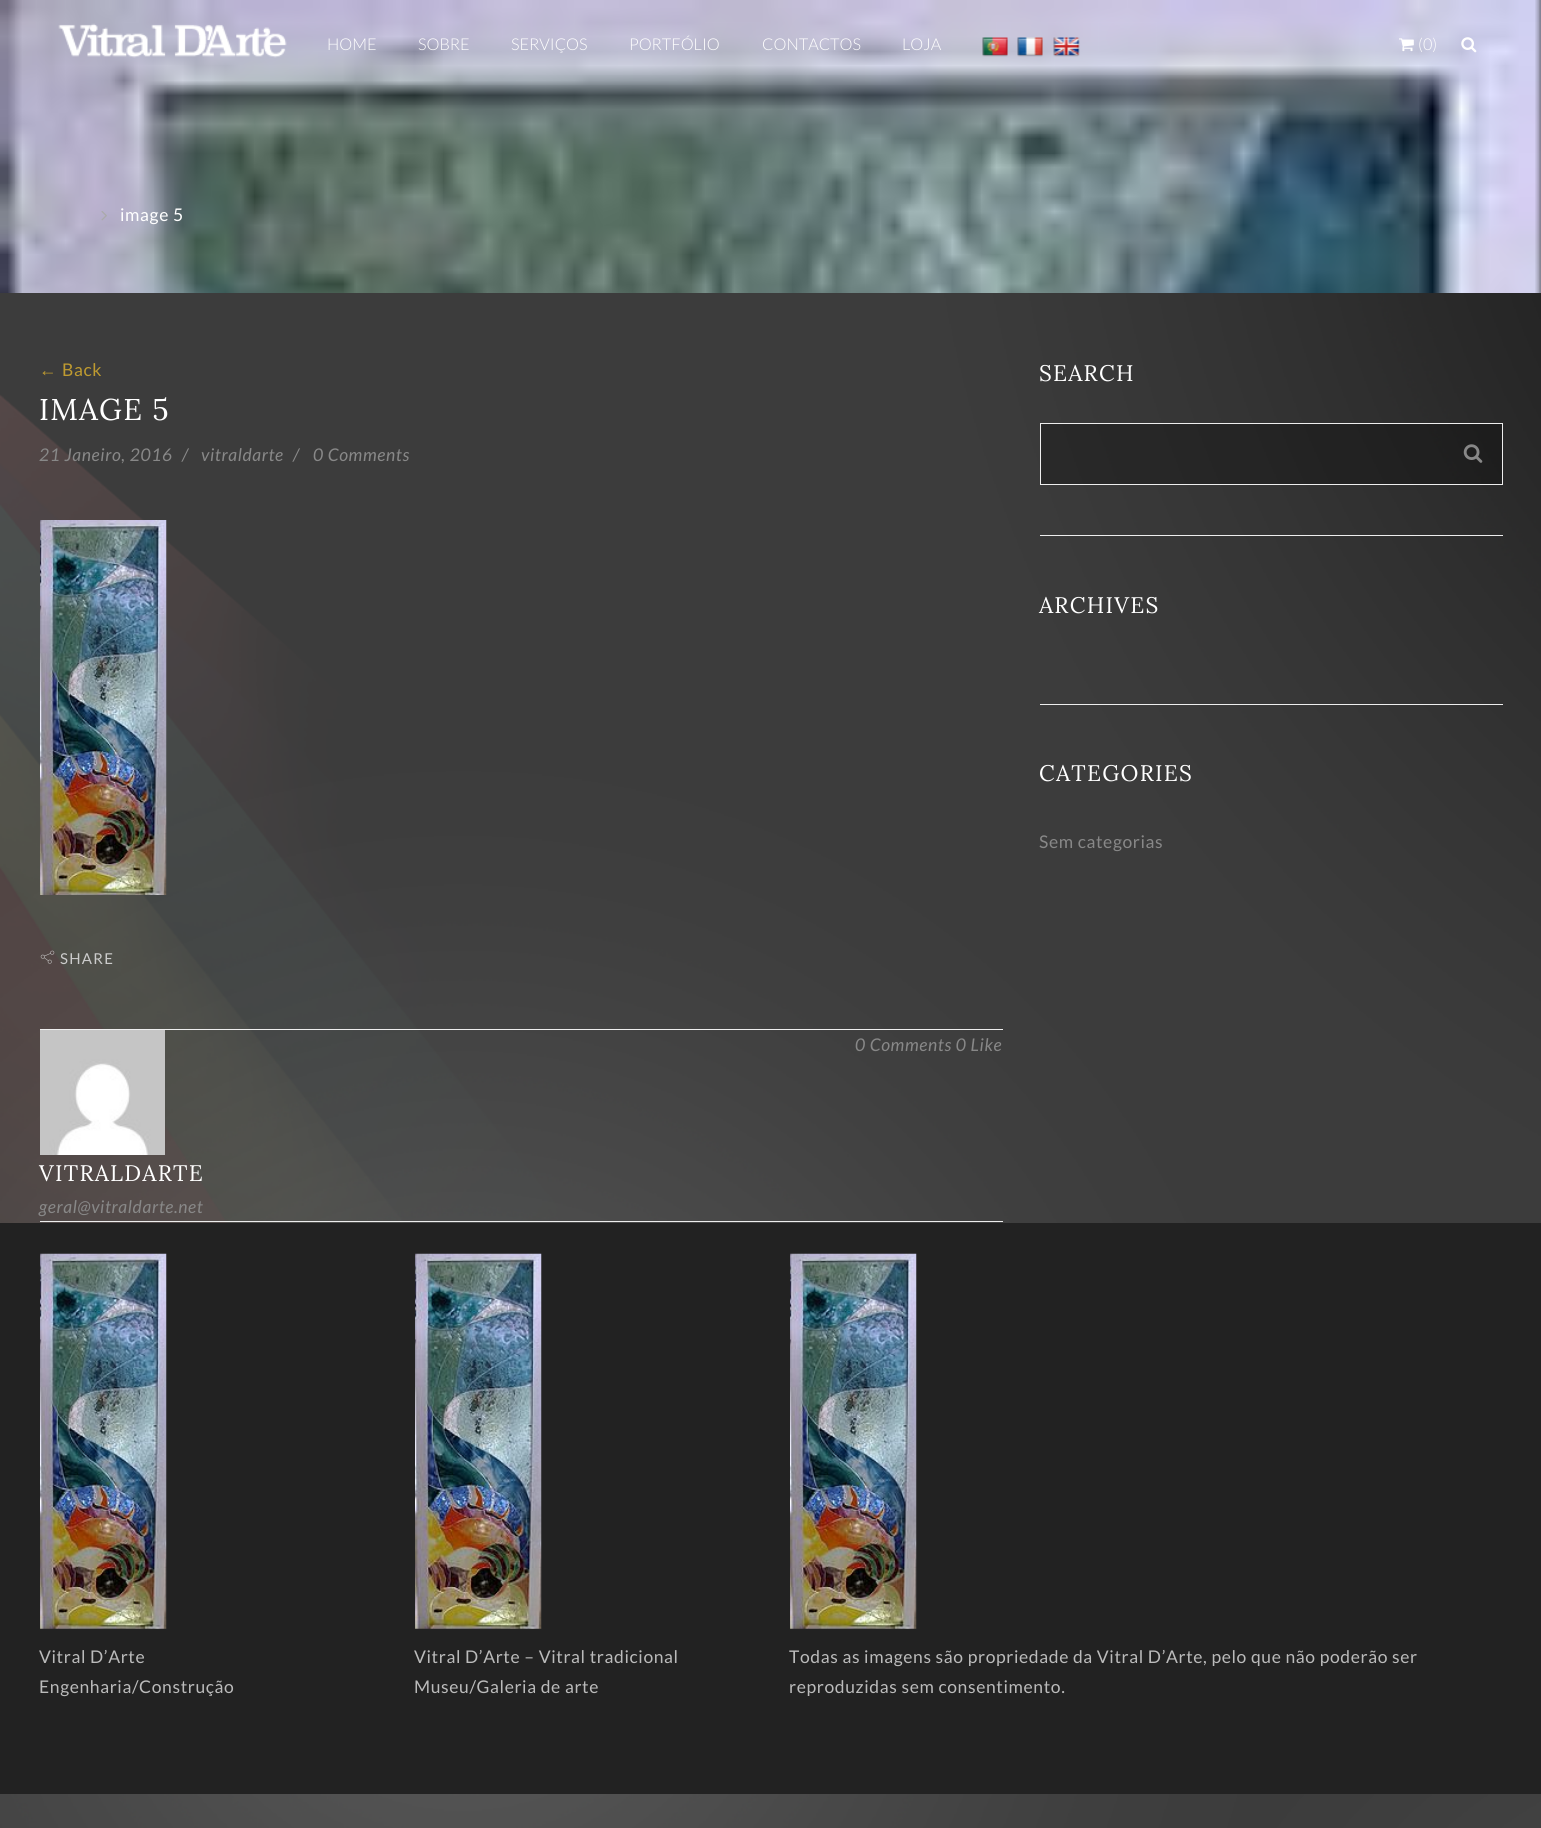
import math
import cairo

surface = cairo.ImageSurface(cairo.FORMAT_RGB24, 1541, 1828)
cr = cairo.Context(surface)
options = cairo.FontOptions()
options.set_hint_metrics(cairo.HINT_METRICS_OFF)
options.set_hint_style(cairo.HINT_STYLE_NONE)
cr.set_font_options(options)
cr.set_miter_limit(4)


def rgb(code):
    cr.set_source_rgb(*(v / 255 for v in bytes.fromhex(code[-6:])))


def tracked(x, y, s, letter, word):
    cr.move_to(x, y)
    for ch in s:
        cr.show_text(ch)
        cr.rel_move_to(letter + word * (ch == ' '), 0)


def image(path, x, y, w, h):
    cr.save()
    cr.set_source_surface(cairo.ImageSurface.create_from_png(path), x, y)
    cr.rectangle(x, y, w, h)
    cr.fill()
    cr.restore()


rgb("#ffffff")
cr.paint()
image("img/1.png", 0, 0, 1541, 1828)
image("img/8.png", 0, 0, 1541, 293)
image("img/2.png", 58, 23, 229, 35)
image("img/3.png", 982, 37, 26, 20)
image("img/4.png", 1017, 37, 26, 20)
image("img/5.png", 1053, 37, 27, 20)
image("img/6.png", 1399, 38, 15, 14)
image("img/7.png", 1461, 37, 16, 16)
image("img/9.png", 101, 211, 6, 10)
image("img/10.png", 40, 520, 127, 375)
rgb("#eeeeee")
cr.rectangle(40, 1029, 963, 1)
cr.fill()
image("img/11.png", 40, 950, 15, 14)
image("img/12.png", 40, 1030, 125, 125)
cr.rectangle(40, 1221, 963, 1)
cr.fill()
cr.rectangle(1040, 535, 463, 1)
cr.fill()
cr.set_source_rgba(0, 0, 0, 0.3)
cr.rectangle(1040.5, 423.5, 462, 61)
cr.fill_preserve()
rgb("#eeeeee")
cr.set_line_width(1)
cr.stroke()
image("img/13.png", 1463, 444, 20, 19)
cr.rectangle(1040, 704, 463, 1)
cr.fill()
rgb("#222222")
cr.rectangle(0, 1223, 1541, 571)
cr.fill()
image("img/14.png", 40, 1253, 127, 376)
image("img/14.png", 415, 1253, 127, 376)
image("img/14.png", 790, 1253, 127, 376)
cr.select_font_face("Lato Light")
cr.set_font_size(16.25)
rgb("#ffffff")
for x, y, s in [
    (327, 50, "HOME"),
    (418, 50, "SOBRE"),
    (511, 50, "SERVIÇOS"),
    (629, 50, "PORTFÓLIO"),
    (762, 50, "CONTACTOS"),
    (902, 50, "LOJA"),
    (1418, 50, "(0)"),
]:
    cr.move_to(x, y)
    cr.show_text(s)
cr.select_font_face("Lato")
cr.set_font_size(17.5)
tracked(120, 221, "image 5", 0.62, 0)
cr.select_font_face("Liberation Serif")
rgb("#bf9b30")
tracked(39, 376, "←", 0.62, 0)
cr.select_font_face("Lato")
tracked(62, 376, "Back", 0.62, 0)
cr.select_font_face("Lora")
cr.set_font_size(30)
rgb("#ffffff")
tracked(39, 420, "IMAGE 5", 1.25, 0)
cr.select_font_face("Lato", cairo.FONT_SLANT_ITALIC)
cr.set_font_size(17.5)
rgb("#888888")
for x, y, s in [
    (39, 461, "21 Janeiro, 2016"),
    (182, 461, "/"),
    (201, 461, "vitraldarte"),
    (293, 461, "/"),
    (313, 461, "0 Comments"),
]:
    tracked(x, y, s, 0.62, 0)
cr.select_font_face("Lato")
cr.set_font_size(15)
rgb("#cccccc")
tracked(60, 964, "SHARE", 1.25, 0)
cr.select_font_face("Lato", cairo.FONT_SLANT_ITALIC)
cr.set_font_size(17.5)
rgb("#888888")
tracked(855, 1051, "0 Comments 0 Like", 0.62, 0)
cr.select_font_face("Lora")
cr.set_font_size(22.5)
rgb("#ffffff")
tracked(39, 1181, "VITRALDARTE", 1.25, 0)
cr.select_font_face("Lato", cairo.FONT_SLANT_ITALIC)
cr.set_font_size(17.5)
rgb("#888888")
tracked(39, 1213, "geral@vitraldarte.net", 0.62, 0)
cr.select_font_face("Lora")
cr.set_font_size(22.5)
rgb("#ffffff")
for x, y, s in [
    (1039, 381, "SEARCH"),
    (1039, 613, "ARCHIVES"),
    (1039, 781, "CATEGORIES"),
]:
    tracked(x, y, s, 1.25, 0)
cr.select_font_face("Lato")
cr.set_font_size(17.5)
rgb("#888888")
tracked(1039, 848, "Sem categorias", 0.62, 0)
rgb("#bbbbbb")
for x, y, s in [
    (39, 1663, "Vitral D’Arte"),
    (39, 1693, "Engenharia/Construção"),
    (414, 1663, "Vitral D’Arte – Vitral tradicional"),
    (414, 1693, "Museu/Galeria de arte"),
    (789, 1663, "Todas as imagens são propriedade da Vitral D’Arte, pelo que não poderão ser"),
    (789, 1693, "reproduzidas sem consentimento."),
]:
    tracked(x, y, s, 0.62, 0)
surface.write_to_png("page.png")
